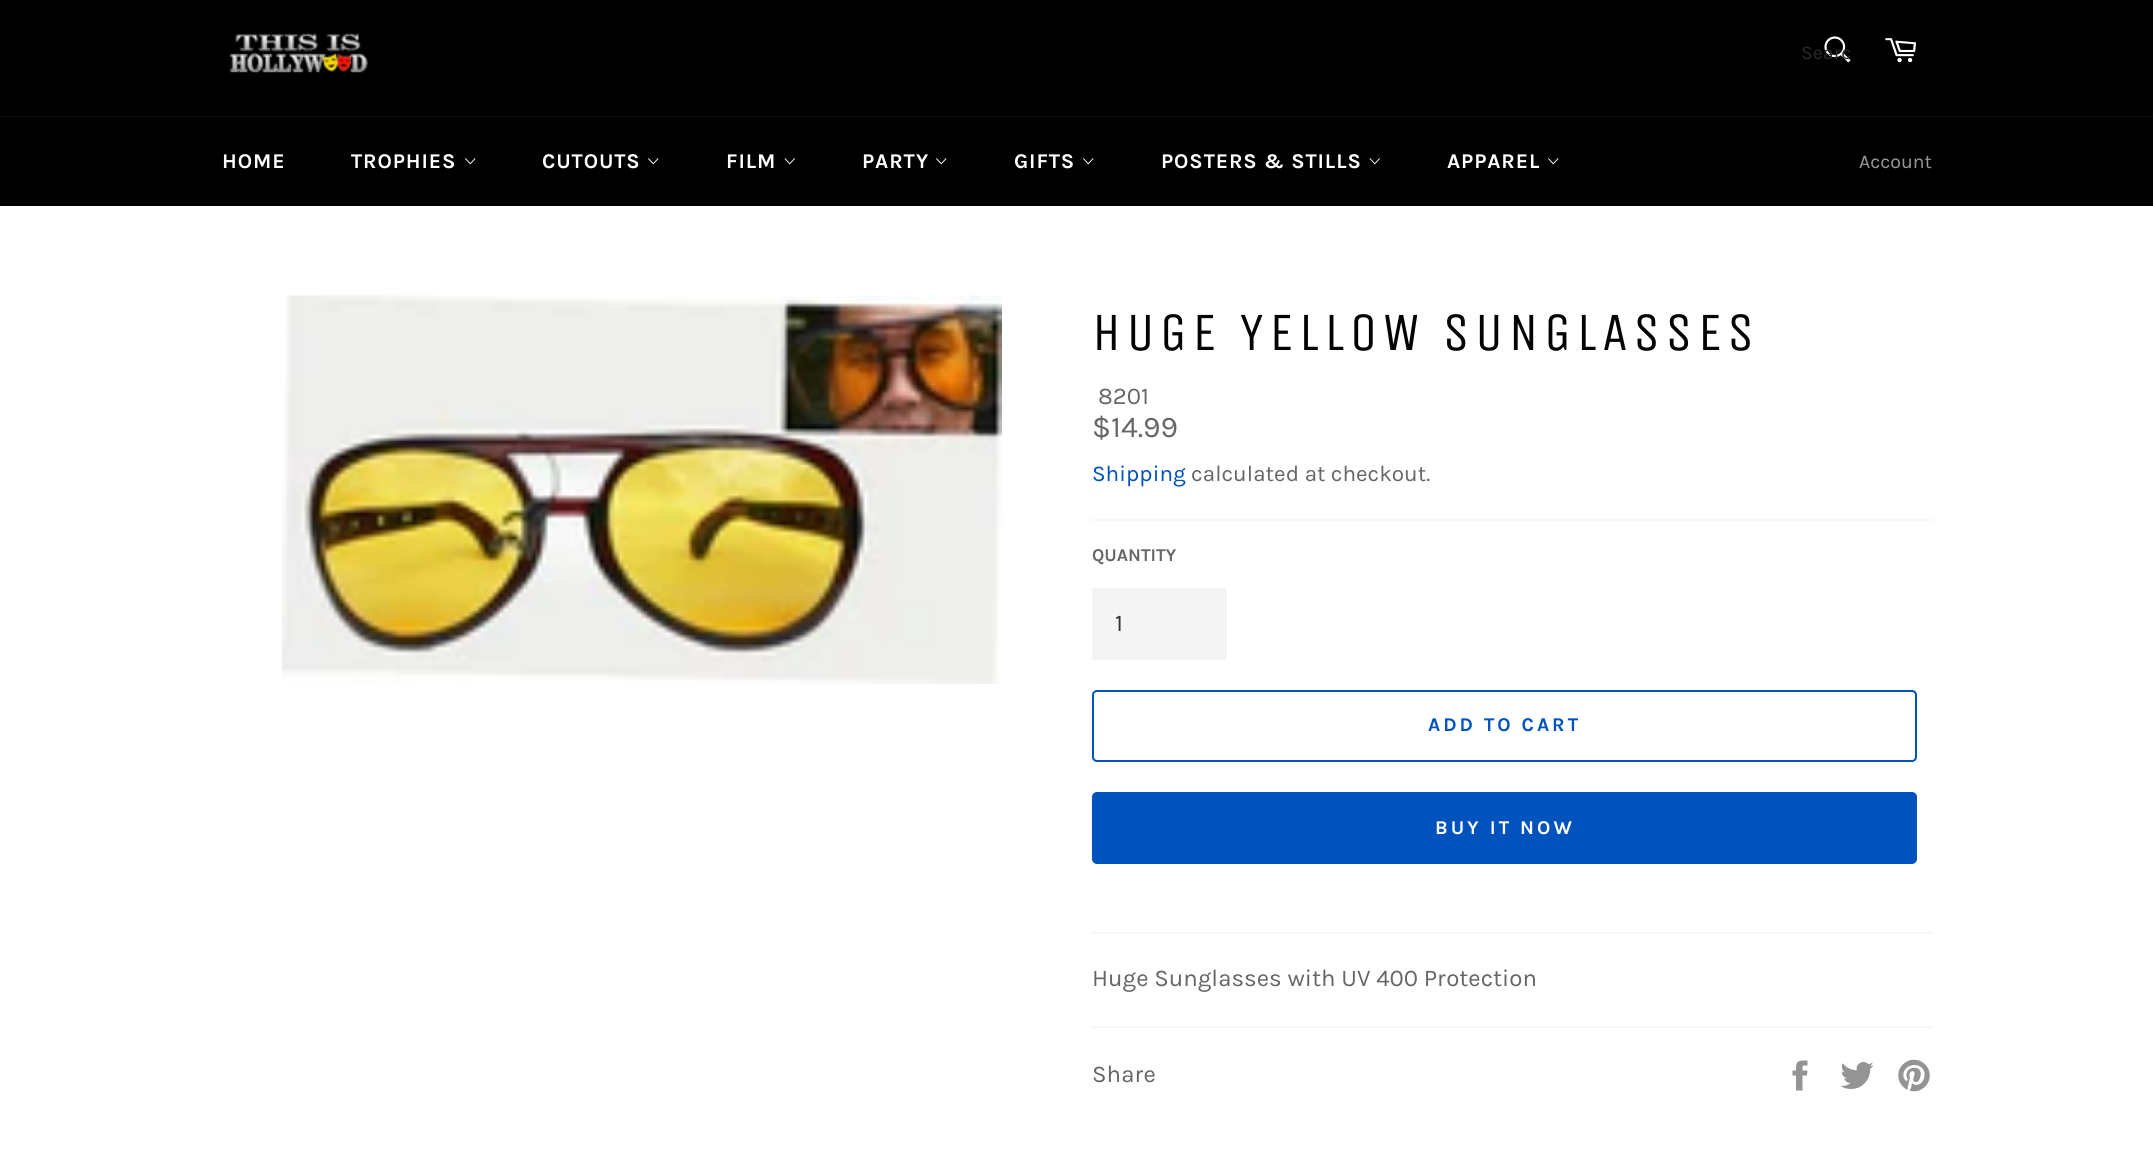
import math
import cairo

surface = cairo.ImageSurface(cairo.FORMAT_RGB24, 2153, 1175)
cr = cairo.Context(surface)
options = cairo.FontOptions()
options.set_hint_metrics(cairo.HINT_METRICS_OFF)
options.set_hint_style(cairo.HINT_STYLE_NONE)
cr.set_font_options(options)
cr.set_miter_limit(4)


def rgb(code):
    cr.set_source_rgb(*(v / 255 for v in bytes.fromhex(code[-6:])))


def tracked(x, y, s, letter, word):
    cr.move_to(x, y)
    for ch in s:
        cr.show_text(ch)
        cr.rel_move_to(letter + word * (ch == ' '), 0)


def rrect(x, y, w, h, r):
    cr.new_sub_path()
    for i, (u, v) in enumerate([(x + w - r, y + h - r), (x + r, y + h - r), (x + r, y + r), (x + w - r, y + r)]):
        cr.arc(u, v, r, i * math.pi / 2, (i + 1) * math.pi / 2)
    cr.close_path()


def image(path, x, y, w, h):
    cr.save()
    cr.set_source_surface(cairo.ImageSurface.create_from_png(path), x, y)
    cr.rectangle(x, y, w, h)
    cr.fill()
    cr.restore()


rgb("#000000")
cr.paint()
image("img/1.png", 229, 32, 139, 41)
image("img/2.png", 1824, 36, 27, 27)
image("img/3.png", 1885, 38, 31, 25)
rgb("#0d0d0d")
cr.rectangle(0, 116, 2153, 1)
cr.fill()
image("img/4.png", 465, 158, 11, 7)
image("img/4.png", 648, 158, 11, 7)
image("img/5.png", 784, 158, 11, 7)
image("img/4.png", 936, 158, 11, 7)
image("img/4.png", 1083, 158, 11, 7)
image("img/5.png", 1369, 158, 11, 7)
image("img/4.png", 1548, 158, 11, 7)
rgb("#ffffff")
cr.rectangle(0, 206, 2153, 969)
cr.fill()
image("img/6.png", 282, 295, 720, 389)
rgb("#f7f7f7")
cr.rectangle(1092, 519, 840, 2)
cr.fill()
rgb("#f4f4f4")
cr.rectangle(1092, 588, 135, 72)
cr.fill()
rrect(1093, 691, 823, 70, 4)
rgb("#0052bd")
cr.stroke()
rrect(1092, 792, 825, 72, 5)
cr.fill()
rgb("#f7f7f7")
cr.rectangle(1092, 932, 840, 2)
cr.fill()
cr.rectangle(1092, 1026, 840, 2)
cr.fill()
image("img/7.png", 1792, 1060, 16, 31)
image("img/8.png", 1840, 1062, 34, 27)
image("img/9.png", 1898, 1059, 32, 33)
cr.save()
cr.rectangle(1802, 41, 48, 22)
cr.clip()
cr.select_font_face("Karla")
cr.set_font_size(19.5)
rgb("#2a2a2a")
cr.move_to(1801, 59)
cr.show_text("Searc")
cr.restore()
cr.select_font_face("Karla", cairo.FONT_SLANT_NORMAL, cairo.FONT_WEIGHT_BOLD)
cr.set_font_size(21)
rgb("#ffffff")
for x, y, s in [
    (222, 168, "HOME"),
    (351, 168, "TROPHIES"),
    (542, 168, "CUTOUTS"),
    (726, 168, "FILM"),
    (862, 168, "PARTY"),
    (1014, 168, "GIFTS"),
    (1161, 168, "POSTERS & STILLS"),
    (1447, 168, "APPAREL"),
]:
    tracked(x, y, s, 0.9, 0)
cr.select_font_face("Karla")
cr.set_font_size(19.5)
rgb("#999999")
cr.move_to(1859, 168)
cr.show_text("Account")
cr.select_font_face("Unica One")
cr.set_font_size(54)
rgb("#030303")
tracked(1092, 350, "HUGE YELLOW SUNGLASSES", 5.4, 0)
cr.select_font_face("Karla")
cr.set_font_size(24)
rgb("#666666")
cr.move_to(1098, 404)
cr.show_text("8201")
cr.set_font_size(30)
cr.move_to(1092, 437)
cr.show_text("$14.99")
cr.set_font_size(22.5)
rgb("#0052bd")
cr.move_to(1092, 481)
cr.show_text("Shipping")
rgb("#666666")
cr.move_to(1191, 481)
cr.show_text("calculated at checkout.")
cr.select_font_face("Karla", cairo.FONT_SLANT_NORMAL, cairo.FONT_WEIGHT_BOLD)
cr.set_font_size(18)
cr.move_to(1092, 561)
cr.show_text("QUANTITY")
cr.select_font_face("Karla")
cr.set_font_size(24)
rgb("#333333")
cr.move_to(1115, 631)
cr.show_text("1")
cr.select_font_face("Karla", cairo.FONT_SLANT_NORMAL, cairo.FONT_WEIGHT_BOLD)
cr.set_font_size(19.5)
rgb("#0052bd")
tracked(1428, 731, "ADD TO CART", 3, 0)
rgb("#ffffff")
tracked(1435, 834, "BUY IT NOW", 3, 0)
cr.select_font_face("Karla")
cr.set_font_size(24)
rgb("#666666")
cr.move_to(1092, 986)
cr.show_text("Huge Sunglasses with UV 400 Protection")
cr.move_to(1092, 1082)
cr.show_text("Share")
surface.write_to_png("page.png")
